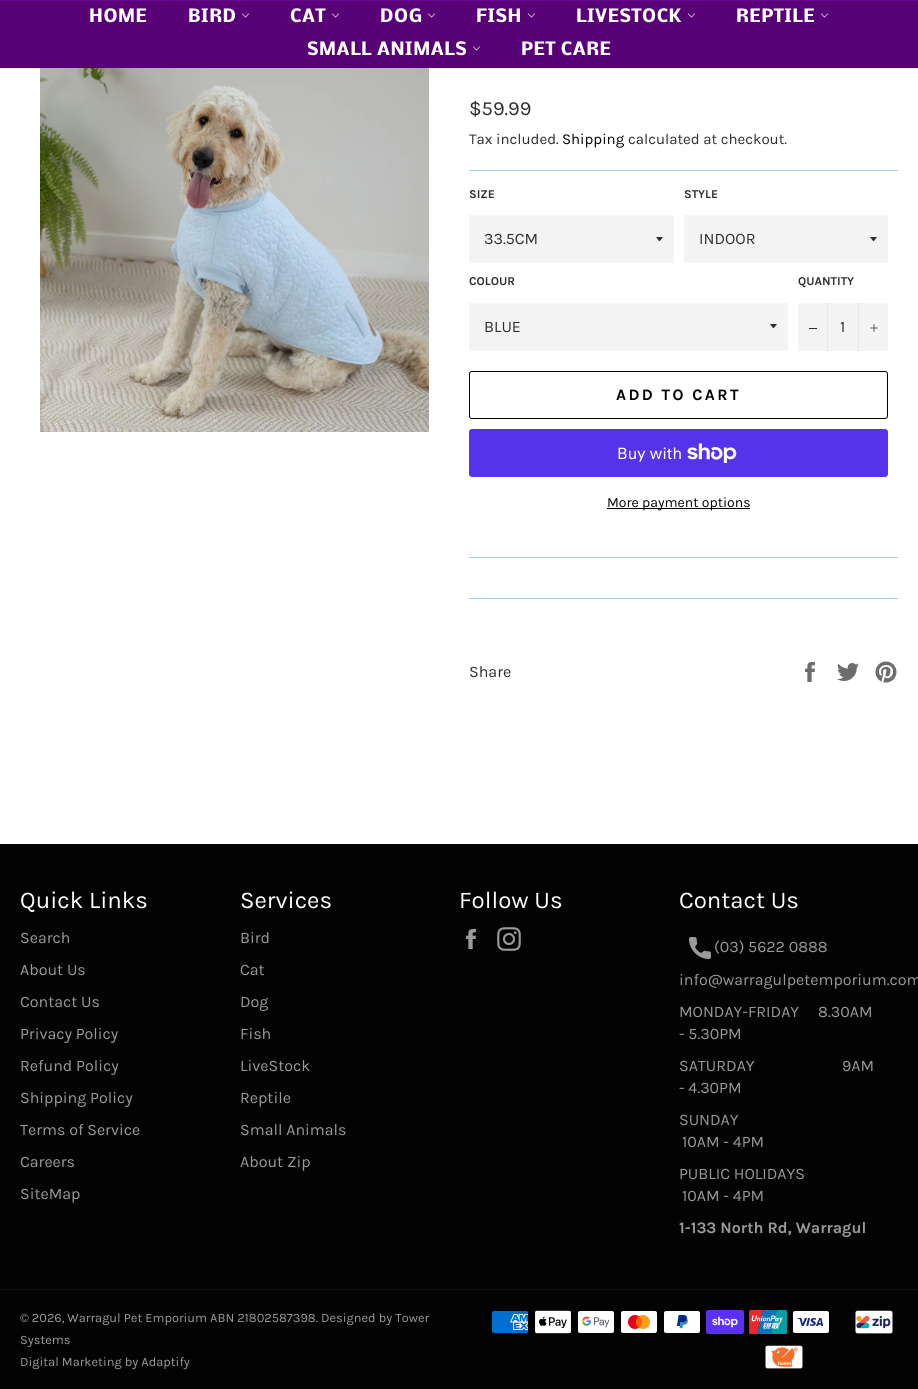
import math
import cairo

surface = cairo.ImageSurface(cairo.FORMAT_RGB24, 918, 1389)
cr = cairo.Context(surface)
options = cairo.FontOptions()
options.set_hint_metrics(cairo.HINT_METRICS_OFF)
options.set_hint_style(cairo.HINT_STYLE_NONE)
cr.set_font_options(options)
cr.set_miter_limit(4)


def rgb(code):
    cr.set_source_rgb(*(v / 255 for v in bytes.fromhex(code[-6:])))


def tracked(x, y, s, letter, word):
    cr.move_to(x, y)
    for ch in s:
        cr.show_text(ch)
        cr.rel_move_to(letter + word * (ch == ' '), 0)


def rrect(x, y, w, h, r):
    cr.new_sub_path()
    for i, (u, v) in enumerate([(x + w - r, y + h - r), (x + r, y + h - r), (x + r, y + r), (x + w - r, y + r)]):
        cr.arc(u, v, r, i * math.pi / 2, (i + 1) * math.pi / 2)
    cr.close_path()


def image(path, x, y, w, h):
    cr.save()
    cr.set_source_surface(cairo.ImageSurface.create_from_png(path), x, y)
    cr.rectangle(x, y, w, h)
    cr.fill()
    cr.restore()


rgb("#ffffff")
cr.paint()
rgb("#580176")
cr.rectangle(0, 1, 918, 67)
cr.fill()
rgb("#6b018f")
cr.rectangle(0, 0, 918, 1)
cr.fill()
image("img/1.png", 242, 13, 7, 5)
image("img/1.png", 332, 13, 7, 5)
image("img/1.png", 428, 13, 7, 5)
image("img/1.png", 528, 13, 7, 5)
image("img/1.png", 688, 13, 7, 5)
image("img/1.png", 821, 13, 7, 5)
image("img/1.png", 473, 46, 7, 5)
image("img/2.png", 40, 68, 389, 364)
rgb("#a1cfe1")
cr.rectangle(469, 170, 429, 1)
cr.fill()
rgb("#f4f4f4")
cr.rectangle(469, 215, 205, 48)
cr.fill()
rgb("#2e2e2e")
cr.new_path()
cr.move_to(656, 237)
cr.curve_to(660.5, 242.5, 658.5, 242.5, 663, 237)
cr.close_path()
cr.fill()
rgb("#f4f4f4")
cr.rectangle(684, 215, 204, 48)
cr.fill()
rgb("#2e2e2e")
cr.new_path()
cr.move_to(870, 237)
cr.curve_to(874.5, 242.5, 872.5, 242.5, 877, 237)
cr.close_path()
cr.fill()
rgb("#f4f4f4")
cr.rectangle(469, 303, 319, 48)
cr.fill()
rgb("#2e2e2e")
cr.new_path()
cr.move_to(770, 324)
cr.curve_to(774.5, 329.5, 772.5, 329.5, 777, 324)
cr.close_path()
cr.fill()
for x, y, w, h, color in [
    (798, 303, 90, 48, "#f4f4f4"),
    (827, 303, 1, 48, "#e7e7e7"),
    (809, 328, 8, 1, "#2e2e2e"),
    (858, 303, 1, 48, "#e7e7e7"),
]:
    rgb(color)
    cr.rectangle(x, y, w, h)
    cr.fill()
image("img/3.png", 870, 324, 8, 8)
rrect(469.5, 371.5, 418, 47, 2.5)
rgb("#000000")
cr.set_line_width(1)
cr.stroke()
rgb("#5433eb")
rrect(469, 429, 419, 48, 3)
cr.fill()
image("img/4.png", 687, 443, 50, 20)
for x, y, w, h, color in [
    (607, 508, 143, 1, "#000000"),
    (469, 557, 429, 1, "#a1cfe1"),
    (469, 598, 429, 1, "#a1cfe1"),
]:
    rgb(color)
    cr.rectangle(x, y, w, h)
    cr.fill()
image("img/5.png", 805, 662, 10, 20)
image("img/6.png", 837, 663, 22, 18)
image("img/7.png", 875, 661, 22, 22)
rgb("#030303")
cr.rectangle(0, 844, 918, 545)
cr.fill()
image("img/8.png", 466, 929, 10, 20)
image("img/9.png", 497, 927, 24, 24)
image("img/10.png", 689, 937, 22, 22)
rgb("#101010")
cr.rectangle(0, 1289, 918, 1)
cr.fill()
image("img/11.png", 492, 1311, 36, 22)
image("img/12.png", 535, 1310, 36, 24)
image("img/13.png", 578, 1311, 36, 22)
image("img/14.png", 621, 1311, 36, 22)
image("img/15.png", 664, 1311, 36, 22)
image("img/16.png", 706, 1310, 38, 24)
image("img/17.png", 749, 1310, 38, 24)
image("img/18.png", 793, 1311, 36, 22)
image("img/19.png", 855, 1310, 38, 24)
image("img/20.png", 765, 1345, 38, 24)
cr.select_font_face("Nobile", cairo.FONT_SLANT_NORMAL, cairo.FONT_WEIGHT_BOLD)
cr.set_font_size(17)
rgb("#ffffff")
for x, y, s in [
    (89, 22, "HOME"),
    (188, 22, "BIRD"),
    (290, 22, "CAT"),
    (380, 22, "DOG"),
    (476, 22, "FISH"),
    (576, 22, "LIVESTOCK"),
    (736, 22, "REPTILE"),
    (307, 55, "SMALL ANIMALS"),
    (521, 55, "PET CARE"),
]:
    tracked(x, y, s, 0.6, 0)
cr.select_font_face("Karla")
cr.set_font_size(20)
rgb("#2e2e2e")
cr.move_to(469, 115)
cr.show_text("$59.99")
cr.set_font_size(15)
cr.move_to(469, 144)
cr.show_text("Tax included.")
rgb("#000000")
cr.move_to(562, 144)
cr.show_text("Shipping")
rgb("#2e2e2e")
cr.move_to(628, 144)
cr.show_text("calculated at checkout.")
cr.select_font_face("Karla", cairo.FONT_SLANT_NORMAL, cairo.FONT_WEIGHT_BOLD)
cr.set_font_size(12)
cr.move_to(469, 198)
cr.show_text("SIZE")
cr.select_font_face("Karla")
cr.set_font_size(16)
cr.move_to(484, 244)
cr.show_text("33.5CM")
cr.select_font_face("Karla", cairo.FONT_SLANT_NORMAL, cairo.FONT_WEIGHT_BOLD)
cr.set_font_size(12)
cr.move_to(684, 198)
cr.show_text("STYLE")
cr.select_font_face("Karla")
cr.set_font_size(16)
cr.move_to(699, 244)
cr.show_text("INDOOR")
cr.select_font_face("Karla", cairo.FONT_SLANT_NORMAL, cairo.FONT_WEIGHT_BOLD)
cr.set_font_size(12)
cr.move_to(469, 285)
cr.show_text("COLOUR")
cr.select_font_face("Karla")
cr.set_font_size(16)
cr.move_to(484, 332)
cr.show_text("BLUE")
cr.select_font_face("Karla", cairo.FONT_SLANT_NORMAL, cairo.FONT_WEIGHT_BOLD)
cr.set_font_size(12)
cr.move_to(798, 285)
cr.show_text("QUANTITY")
cr.select_font_face("Karla")
cr.set_font_size(16)
cr.move_to(840, 332)
cr.show_text("1")
cr.select_font_face("Karla", cairo.FONT_SLANT_NORMAL, cairo.FONT_WEIGHT_BOLD)
rgb("#000000")
tracked(616, 400, "ADD TO CART", 2.4, 0)
cr.select_font_face("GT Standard")
rgb("#ffffff")
cr.move_to(617, 459)
cr.show_text("Buy with")
cr.select_font_face("Karla")
cr.set_font_size(14)
rgb("#000000")
cr.move_to(607, 507)
cr.show_text("More payment options")
cr.set_font_size(16)
rgb("#2e2e2e")
cr.move_to(469, 677)
cr.show_text("Share")
cr.set_font_size(24)
rgb("#ffffff")
cr.move_to(20, 908)
cr.show_text("Quick Links")
cr.set_font_size(16)
rgb("#9a9a9a")
for x, y, s in [
    (20, 943, "Search"),
    (20, 975, "About Us"),
    (20, 1007, "Contact Us"),
    (20, 1039, "Privacy Policy"),
    (20, 1071, "Refund Policy"),
    (20, 1103, "Shipping Policy"),
    (20, 1135, "Terms of Service"),
    (20, 1167, "Careers"),
    (20, 1199, "SiteMap"),
]:
    cr.move_to(x, y)
    cr.show_text(s)
cr.set_font_size(24)
rgb("#ffffff")
cr.move_to(240, 908)
cr.show_text("Services")
cr.set_font_size(16)
rgb("#9a9a9a")
for x, y, s in [
    (240, 943, "Bird"),
    (240, 975, "Cat"),
    (240, 1007, "Dog"),
    (240, 1039, "Fish"),
    (240, 1071, "LiveStock"),
    (240, 1103, "Reptile"),
    (240, 1135, "Small Animals"),
    (240, 1167, "About Zip"),
]:
    cr.move_to(x, y)
    cr.show_text(s)
cr.set_font_size(24)
rgb("#ffffff")
cr.move_to(459, 908)
cr.show_text("Follow Us")
cr.move_to(679, 908)
cr.show_text("Contact Us")
cr.set_font_size(16)
rgb("#9a9a9a")
for x, y, s in [
    (714, 952, "(03) 5622 0888"),
    (679, 985, "info@warragulpetemporium.com"),
    (679, 1017, "MONDAY-FRIDAY     8.30AM"),
    (679, 1039, "- 5.30PM"),
    (679, 1071, "SATURDAY                       9AM"),
    (679, 1093, "- 4.30PM"),
    (679, 1125, "SUNDAY"),
    (682, 1147, "10AM - 4PM"),
    (679, 1179, "PUBLIC HOLIDAYS"),
    (682, 1201, "10AM - 4PM"),
]:
    cr.move_to(x, y)
    cr.show_text(s)
cr.select_font_face("Karla", cairo.FONT_SLANT_NORMAL, cairo.FONT_WEIGHT_BOLD)
cr.move_to(679, 1233)
cr.show_text("1-133 North Rd, Warragul")
cr.select_font_face("Karla")
cr.set_font_size(12.8)
for x, y, s in [
    (20, 1322, "© 2026, Warragul Pet Emporium ABN 21802587398. Designed by Tower"),
    (20, 1344, "Systems"),
    (20, 1366, "Digital Marketing by Adaptify"),
]:
    cr.move_to(x, y)
    cr.show_text(s)
surface.write_to_png("page.png")
